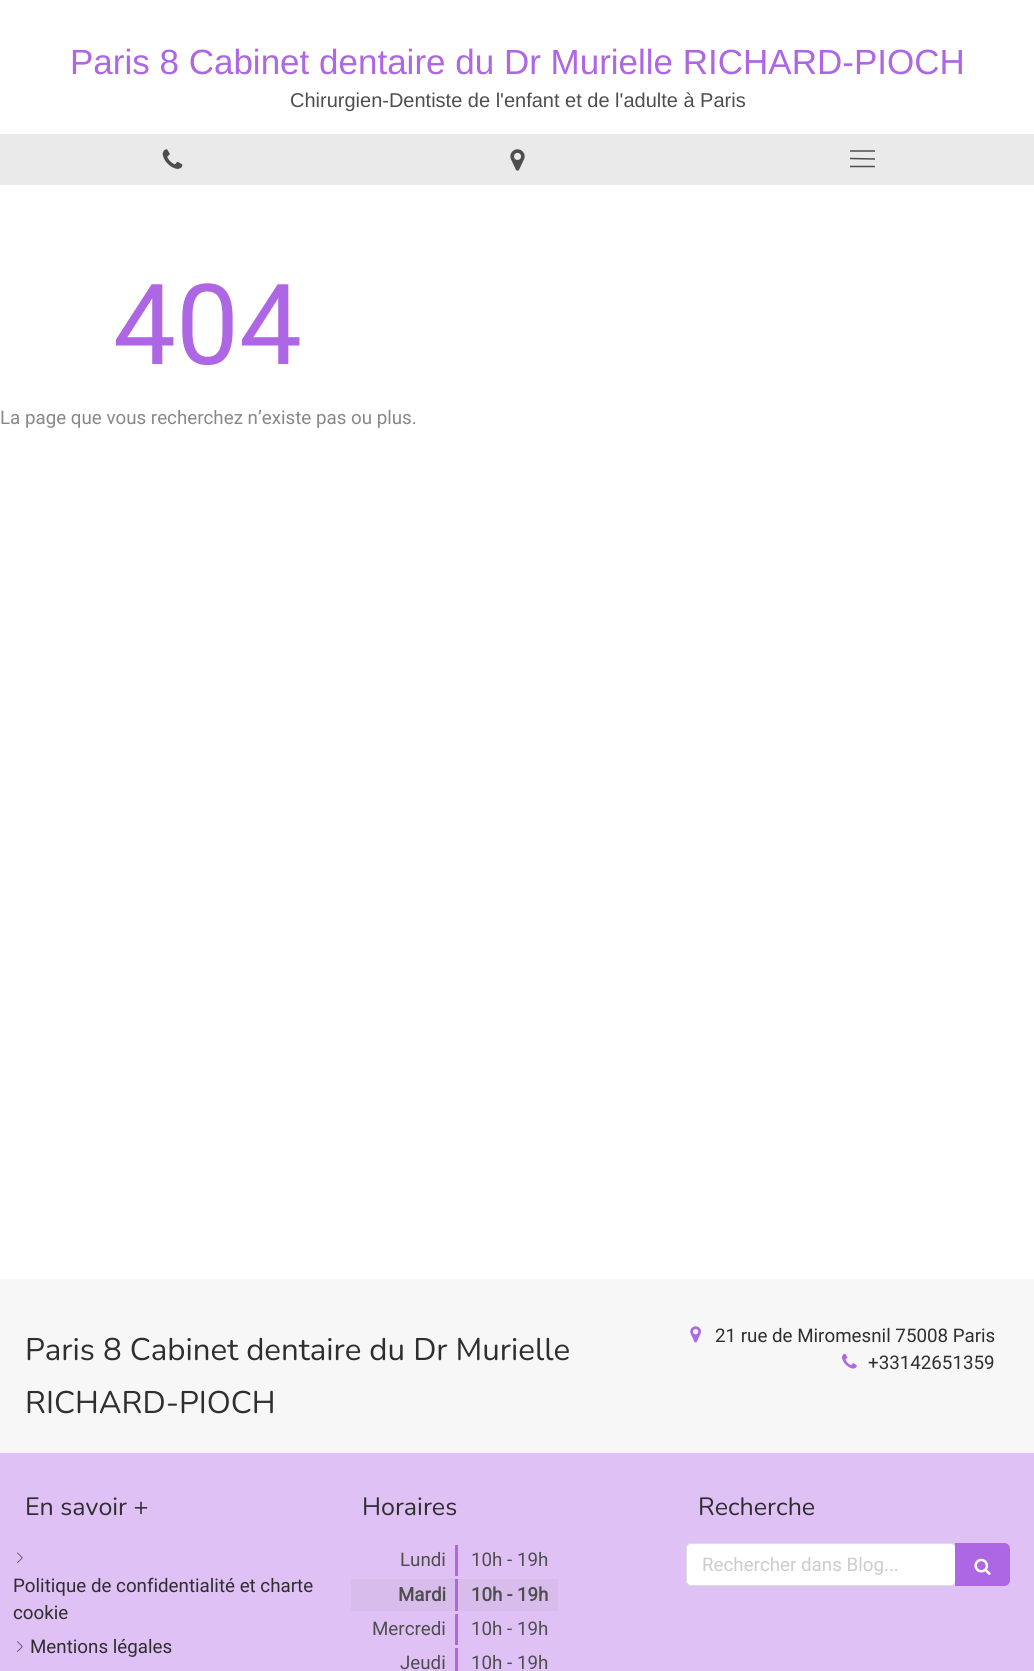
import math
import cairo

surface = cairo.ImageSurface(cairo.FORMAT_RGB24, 1034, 1671)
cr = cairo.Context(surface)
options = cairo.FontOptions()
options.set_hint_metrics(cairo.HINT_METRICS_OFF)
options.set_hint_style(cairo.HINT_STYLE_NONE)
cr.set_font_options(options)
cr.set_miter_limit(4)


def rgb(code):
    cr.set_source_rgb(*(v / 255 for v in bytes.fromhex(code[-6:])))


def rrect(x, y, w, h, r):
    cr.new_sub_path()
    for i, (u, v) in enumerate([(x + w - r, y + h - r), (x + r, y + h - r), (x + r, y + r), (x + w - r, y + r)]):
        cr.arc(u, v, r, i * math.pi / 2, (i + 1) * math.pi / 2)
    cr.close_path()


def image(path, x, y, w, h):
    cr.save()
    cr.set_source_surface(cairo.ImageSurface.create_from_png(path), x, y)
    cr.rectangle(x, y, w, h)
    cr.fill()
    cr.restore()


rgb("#ffffff")
cr.paint()
rgb("#eaeaea")
cr.rectangle(0, 134, 1034, 51)
cr.fill()
image("img/1.png", 162, 149, 21, 20)
image("img/2.png", 510, 149, 15, 22)
rgb("#757575")
cr.rectangle(850, 150, 25, 2)
cr.fill()
cr.new_path()
cr.move_to(850, 158.5)
cr.line_to(875, 159)
rgb("#4e4e4e")
cr.set_line_width(1.5)
cr.stroke()
cr.new_path()
cr.move_to(850, 166.5)
cr.line_to(875, 166.5)
cr.stroke()
rgb("#f7f7f7")
cr.rectangle(0, 1279, 1034, 174)
cr.fill()
image("img/3.png", 690, 1326, 11, 17)
image("img/4.png", 842, 1353, 15, 16)
rgb("#dfc1f5")
cr.rectangle(0, 1453, 1034, 218)
cr.fill()
image("img/5.png", 17, 1552, 6, 12)
image("img/6.png", 17, 1641, 6, 11)
for x, y, w, h, color in [
    (455, 1545, 3, 31, "#ae67e4"),
    (351, 1579, 207, 32, "#d8bdec"),
    (455, 1579, 3, 32, "#ae67e4"),
    (455, 1614, 3, 31, "#ae67e4"),
    (455, 1648, 3, 23, "#ae67e4"),
]:
    rgb(color)
    cr.rectangle(x, y, w, h)
    cr.fill()
rgb("#ffffff")
rrect(686.5, 1543.5, 269, 42, 4.5)
cr.fill_preserve()
rgb("#dddddd")
cr.set_line_width(1)
cr.stroke()
rgb("#ae67e4")
cr.new_path()
cr.move_to(955, 1543)
cr.line_to(1004, 1543)
cr.curve_to(1007.5, 1543, 1010, 1545.5, 1010, 1549)
cr.line_to(1010, 1580)
cr.curve_to(1010, 1583.5, 1007.5, 1586, 1004, 1586)
cr.line_to(955, 1586)
cr.close_path()
cr.fill()
image("img/7.png", 974, 1558, 17, 17)
cr.select_font_face("Liberation Sans")
cr.set_font_size(35)
cr.move_to(70, 74)
cr.show_text("Paris 8 Cabinet dentaire du Dr Murielle RICHARD-PIOCH")
cr.set_font_size(20)
rgb("#4e4e4e")
cr.move_to(290, 107)
cr.show_text("Chirurgien-Dentiste de l'enfant et de l'adulte à Paris")
cr.select_font_face("Roboto")
cr.set_font_size(112)
rgb("#ae67e4")
cr.move_to(113, 364)
cr.show_text("404")
cr.set_font_size(18.75)
rgb("#888888")
cr.move_to(0, 424)
cr.show_text("La page que vous recherchez n’existe pas ou plus.")
cr.select_font_face("Nunito")
cr.set_font_size(31.25)
rgb("#2f2f2f")
cr.move_to(25, 1360)
cr.show_text("Paris 8 Cabinet dentaire du Dr Murielle")
cr.move_to(25, 1413)
cr.show_text("RICHARD-PIOCH")
cr.select_font_face("Roboto")
cr.set_font_size(18.75)
cr.move_to(715, 1342)
cr.show_text("21 rue de Miromesnil 75008 Paris")
cr.move_to(868, 1369)
cr.show_text("+33142651359")
cr.select_font_face("Nunito")
cr.set_font_size(25)
cr.move_to(25, 1515)
cr.show_text("En savoir +")
cr.select_font_face("Roboto")
cr.set_font_size(18.75)
for x, y, s in [
    (13, 1592, "Politique de confidentialité et charte"),
    (13, 1619, "cookie"),
    (30, 1653, "Mentions légales"),
]:
    cr.move_to(x, y)
    cr.show_text(s)
cr.select_font_face("Nunito")
cr.set_font_size(25)
cr.move_to(362, 1515)
cr.show_text("Horaires")
cr.select_font_face("Roboto")
cr.set_font_size(18.75)
rgb("#4e4e4e")
cr.move_to(400, 1566)
cr.show_text("Lundi")
cr.move_to(471, 1566)
cr.show_text("10h - 19h")
cr.select_font_face("Roboto", cairo.FONT_SLANT_NORMAL, cairo.FONT_WEIGHT_BOLD)
cr.move_to(398, 1601)
cr.show_text("Mardi")
cr.move_to(471, 1601)
cr.show_text("10h - 19h")
cr.select_font_face("Roboto")
for x, y, s in [
    (372, 1635, "Mercredi"),
    (471, 1635, "10h - 19h"),
    (400, 1669, "Jeudi"),
    (471, 1669, "10h - 19h"),
]:
    cr.move_to(x, y)
    cr.show_text(s)
cr.select_font_face("Nunito")
cr.set_font_size(25)
rgb("#2f2f2f")
cr.move_to(698, 1515)
cr.show_text("Recherche")
cr.select_font_face("Roboto")
cr.set_font_size(18.75)
rgb("#cccccc")
cr.move_to(702, 1571)
cr.show_text("Rechercher dans Blog...")
surface.write_to_png("page.png")
